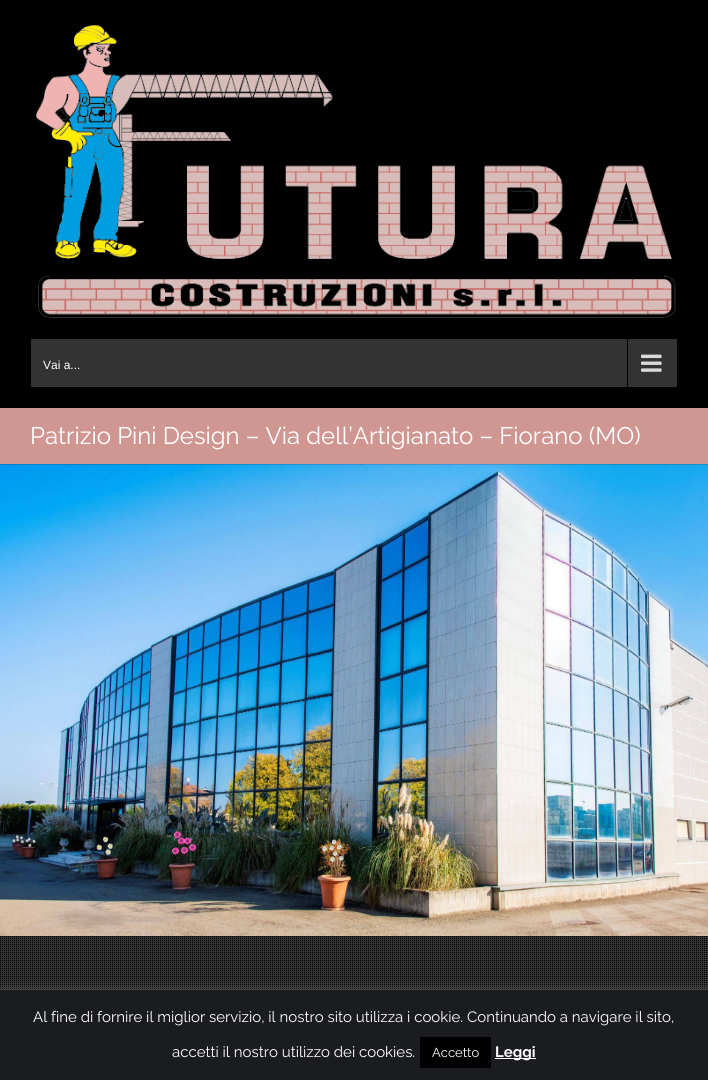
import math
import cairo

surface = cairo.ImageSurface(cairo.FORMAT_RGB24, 708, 1080)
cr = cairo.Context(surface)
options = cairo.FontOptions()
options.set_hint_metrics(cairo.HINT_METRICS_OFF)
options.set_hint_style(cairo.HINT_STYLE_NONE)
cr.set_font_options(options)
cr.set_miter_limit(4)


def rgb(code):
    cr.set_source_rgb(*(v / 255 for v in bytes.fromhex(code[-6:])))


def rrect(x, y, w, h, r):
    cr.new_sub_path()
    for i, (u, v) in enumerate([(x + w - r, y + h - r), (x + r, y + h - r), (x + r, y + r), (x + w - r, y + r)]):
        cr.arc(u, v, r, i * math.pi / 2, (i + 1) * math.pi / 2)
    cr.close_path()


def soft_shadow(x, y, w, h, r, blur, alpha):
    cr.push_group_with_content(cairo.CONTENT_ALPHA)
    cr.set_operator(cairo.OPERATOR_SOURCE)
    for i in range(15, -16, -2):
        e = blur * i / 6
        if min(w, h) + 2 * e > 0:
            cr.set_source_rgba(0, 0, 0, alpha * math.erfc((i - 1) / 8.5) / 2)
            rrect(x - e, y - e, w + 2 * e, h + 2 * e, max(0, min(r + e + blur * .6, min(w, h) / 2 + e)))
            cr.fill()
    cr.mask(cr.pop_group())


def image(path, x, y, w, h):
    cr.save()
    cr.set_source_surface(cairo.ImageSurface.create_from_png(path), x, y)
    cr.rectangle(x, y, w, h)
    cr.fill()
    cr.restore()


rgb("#d09692")
cr.paint()
rgb("#000000")
cr.rectangle(0, 0, 708, 408)
cr.fill()
image("img/1.png", 36, 25, 640, 293)
rgb("#333333")
cr.rectangle(31, 339, 646, 48)
cr.fill()
rgb("#000000")
cr.rectangle(627, 339, 1, 48)
cr.fill()
image("img/2.png", 641, 354, 21, 18)
image("img/3.png", 0, 464, 708, 526)
image("img/4.png", 0, 464, 708, 472)
rgb("#acabab")
soft_shadow(0, 989, 708, 90, 0, 5, 0.3)
for x, y, w, h, color in [
    (0, 990, 708, 90, "#1a1c20"),
    (420, 1037, 71, 31, "#000000"),
    (495, 1058, 41, 1, "#ffffff"),
]:
    rgb(color)
    cr.rectangle(x, y, w, h)
    cr.fill()
cr.select_font_face("Liberation Sans")
cr.set_font_size(12)
cr.move_to(43, 369)
cr.show_text("Vai a...")
cr.select_font_face("Raleway")
cr.set_font_size(24)
cr.move_to(30, 444)
cr.show_text("Patrizio Pini Design – Via dell’Artigianato – Fiorano (MO)")
cr.set_font_size(15)
cr.move_to(33, 1022)
cr.show_text("Al fine di fornire il miglior servizio, il nostro sito utilizza i cookie. Continuando a navigare il sito,")
cr.move_to(172, 1057)
cr.show_text("accetti il nostro utilizzo dei cookies.")
cr.set_font_size(13)
cr.move_to(432, 1057)
cr.show_text("Accetto")
cr.select_font_face("Raleway", cairo.FONT_SLANT_NORMAL, cairo.FONT_WEIGHT_BOLD)
cr.set_font_size(15)
cr.move_to(495, 1057)
cr.show_text("Leggi")
surface.write_to_png("page.png")
